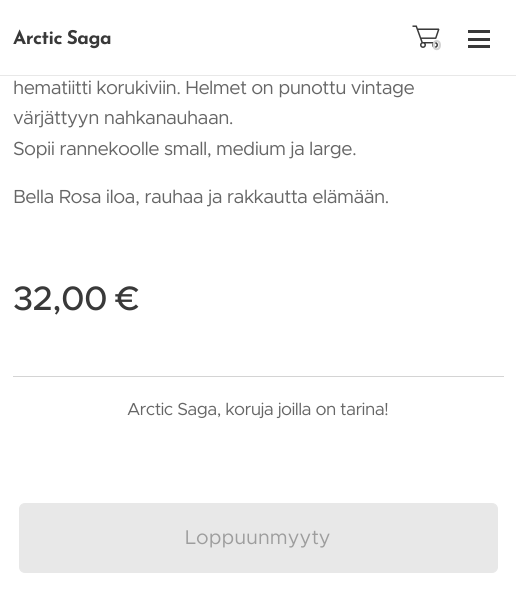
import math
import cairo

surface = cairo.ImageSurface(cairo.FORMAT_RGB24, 516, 591)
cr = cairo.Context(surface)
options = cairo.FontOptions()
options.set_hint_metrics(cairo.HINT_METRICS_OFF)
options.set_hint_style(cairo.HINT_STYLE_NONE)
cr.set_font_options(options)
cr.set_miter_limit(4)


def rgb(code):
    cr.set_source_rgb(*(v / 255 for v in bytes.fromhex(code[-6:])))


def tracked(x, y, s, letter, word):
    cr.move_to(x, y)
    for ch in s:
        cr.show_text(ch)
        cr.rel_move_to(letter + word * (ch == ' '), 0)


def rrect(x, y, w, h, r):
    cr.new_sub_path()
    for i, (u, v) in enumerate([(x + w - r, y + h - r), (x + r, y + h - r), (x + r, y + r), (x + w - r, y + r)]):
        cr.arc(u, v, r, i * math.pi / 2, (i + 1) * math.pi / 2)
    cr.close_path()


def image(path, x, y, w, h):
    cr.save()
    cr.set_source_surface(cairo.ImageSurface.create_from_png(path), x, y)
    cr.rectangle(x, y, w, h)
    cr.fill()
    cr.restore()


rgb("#ffffff")
cr.paint()
rgb("#e8e8e8")
cr.rectangle(0, 75, 516, 1)
cr.fill()
image("img/1.png", 412, 25, 28, 23)
for x, y, w, h, color in [
    (468, 38, 22, 3, "#393939"),
    (468, 30, 22, 3, "#393939"),
    (468, 45, 22, 3, "#393939"),
]:
    rgb(color)
    cr.rectangle(x, y, w, h)
    cr.fill()
rgb("#e8e8e8")
rrect(19.5, 503.5, 478, 69, 5.5)
cr.fill_preserve()
cr.set_line_width(1)
cr.stroke()
rgb("#d4d4d4")
cr.rectangle(13, 376, 491, 1)
cr.fill()
cr.select_font_face("Josefin Sans", cairo.FONT_SLANT_NORMAL, cairo.FONT_WEIGHT_BOLD)
cr.set_font_size(19)
rgb("#393939")
tracked(13, 44, "Arctic Saga", -0.5, -1)
cr.select_font_face("Montserrat", cairo.FONT_SLANT_NORMAL, cairo.FONT_WEIGHT_BOLD)
cr.set_font_size(14)
rgb("#d2d2d2")
cr.move_to(432, 50)
cr.show_text("0")
cr.select_font_face("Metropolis")
cr.set_font_size(19)
rgb("#666666")
for x, y, s in [
    (13, 94, "hematiitti korukiviin. Helmet on punottu vintage"),
    (13, 124, "värjättyyn nahkanauhaan."),
    (13, 155, "Sopii rannekoolle small, medium ja large."),
    (13, 203, "Bella Rosa iloa, rauhaa ja rakkautta elämään."),
]:
    tracked(x, y, s, -0.6, 0)
cr.select_font_face("Metropolis Medium")
cr.set_font_size(34)
rgb("#393939")
tracked(13, 310, "32,00 €", -0.6, 0)
cr.select_font_face("Metropolis")
cr.set_font_size(20)
rgb("#9d9d9d")
cr.move_to(185, 544)
cr.show_text("Loppuunmyyty")
cr.set_font_size(17.5)
rgb("#666666")
tracked(127, 415, "Arctic Saga, koruja joilla on tarina!", -0.6, 0)
surface.write_to_png("page.png")
